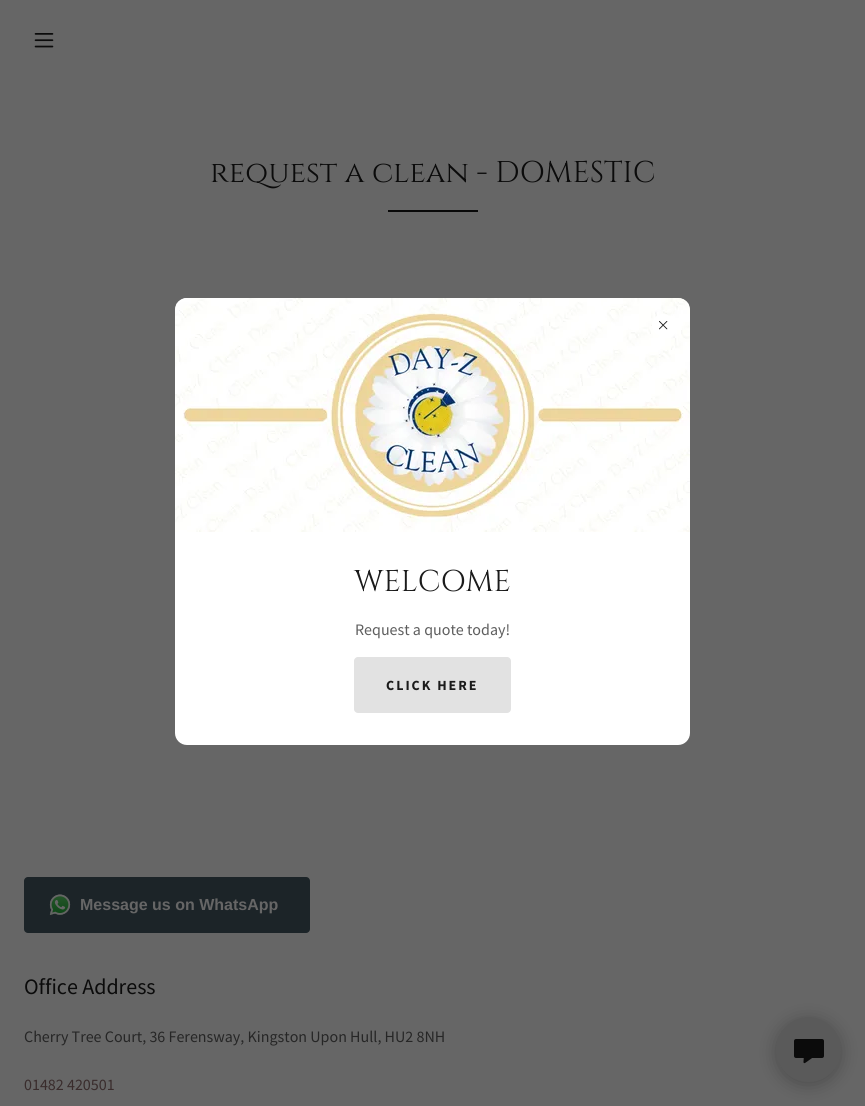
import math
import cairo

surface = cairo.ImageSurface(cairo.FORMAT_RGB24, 865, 1106)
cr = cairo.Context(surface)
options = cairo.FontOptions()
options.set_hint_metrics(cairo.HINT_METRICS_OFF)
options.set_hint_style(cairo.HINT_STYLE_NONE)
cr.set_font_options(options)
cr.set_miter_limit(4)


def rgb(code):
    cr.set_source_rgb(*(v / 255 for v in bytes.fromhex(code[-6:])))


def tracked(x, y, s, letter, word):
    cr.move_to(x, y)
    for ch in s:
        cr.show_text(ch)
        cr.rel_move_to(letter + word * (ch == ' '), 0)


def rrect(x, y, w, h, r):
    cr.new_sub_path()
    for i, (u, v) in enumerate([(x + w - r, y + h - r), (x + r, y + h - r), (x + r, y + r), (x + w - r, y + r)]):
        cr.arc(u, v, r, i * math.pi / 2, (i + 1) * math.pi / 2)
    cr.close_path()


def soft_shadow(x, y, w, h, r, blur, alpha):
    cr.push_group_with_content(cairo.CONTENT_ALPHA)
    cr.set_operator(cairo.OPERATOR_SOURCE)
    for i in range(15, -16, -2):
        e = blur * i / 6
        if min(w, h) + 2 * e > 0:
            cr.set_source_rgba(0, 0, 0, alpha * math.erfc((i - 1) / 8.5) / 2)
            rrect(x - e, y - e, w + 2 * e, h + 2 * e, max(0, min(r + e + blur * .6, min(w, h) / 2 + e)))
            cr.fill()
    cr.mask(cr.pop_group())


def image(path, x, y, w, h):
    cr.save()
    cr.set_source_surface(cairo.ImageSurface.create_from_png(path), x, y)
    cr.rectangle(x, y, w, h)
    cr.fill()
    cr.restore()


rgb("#666666")
cr.paint()
image("img/1.png", 34, 33, 20, 15)
rgb("#090909")
cr.rectangle(388, 210, 90, 2)
cr.fill()
rgb("#1c2428")
rrect(24, 877, 286, 56, 4)
cr.fill()
image("img/2.png", 49, 894, 22, 21)
rgb("#ffffff")
rrect(175, 298, 515, 447, 12)
cr.fill()
image("img/4.png", 175, 298, 515, 234)
cr.arc(663, 325, 11, 0, 2 * math.pi)
cr.fill()
image("img/3.png", 659, 321, 9, 9)
rgb("#e2e2e2")
rrect(354, 657, 157, 56, 4)
cr.fill()
rgb("#000000")
soft_shadow(776, 1020, 65, 65, 32.5, 9, 0.25)
rgb("#5a5a5a")
cr.arc(808.5, 1049.5, 32.5, 0, 2 * math.pi)
cr.fill()
image("img/5.png", 794, 1039, 30, 25)
cr.select_font_face("Cinzel")
cr.set_font_size(30)
rgb("#0b0b0b")
cr.move_to(210, 182)
cr.show_text("request a clean - DOMESTIC")
cr.select_font_face("Liberation Sans", cairo.FONT_SLANT_NORMAL, cairo.FONT_WEIGHT_BOLD)
cr.set_font_size(16)
rgb("#666666")
cr.move_to(80, 910)
cr.show_text("Message us on WhatsApp")
cr.select_font_face("Source Sans Pro")
cr.set_font_size(22)
rgb("#0b0b0b")
cr.move_to(24, 994)
cr.show_text("Office Address")
cr.set_font_size(16)
rgb("#262626")
cr.move_to(24, 1042)
cr.show_text("Cherry Tree Court, 36 Ferensway, Kingston Upon Hull, HU2 8NH")
rgb("#392c2c")
cr.move_to(24, 1090)
cr.show_text("01482 420501")
cr.select_font_face("Cinzel")
cr.set_font_size(30)
rgb("#1b1b1b")
cr.move_to(354, 591)
cr.show_text("WELCOME")
cr.select_font_face("Source Sans Pro")
cr.set_font_size(16)
rgb("#5e5e5e")
cr.move_to(355, 635)
cr.show_text("Request a quote today!")
cr.select_font_face("Source Sans Pro", cairo.FONT_SLANT_NORMAL, cairo.FONT_WEIGHT_BOLD)
cr.set_font_size(14)
rgb("#1b1b1b")
tracked(386, 690, "CLICK HERE", 2, 0)
surface.write_to_png("page.png")
